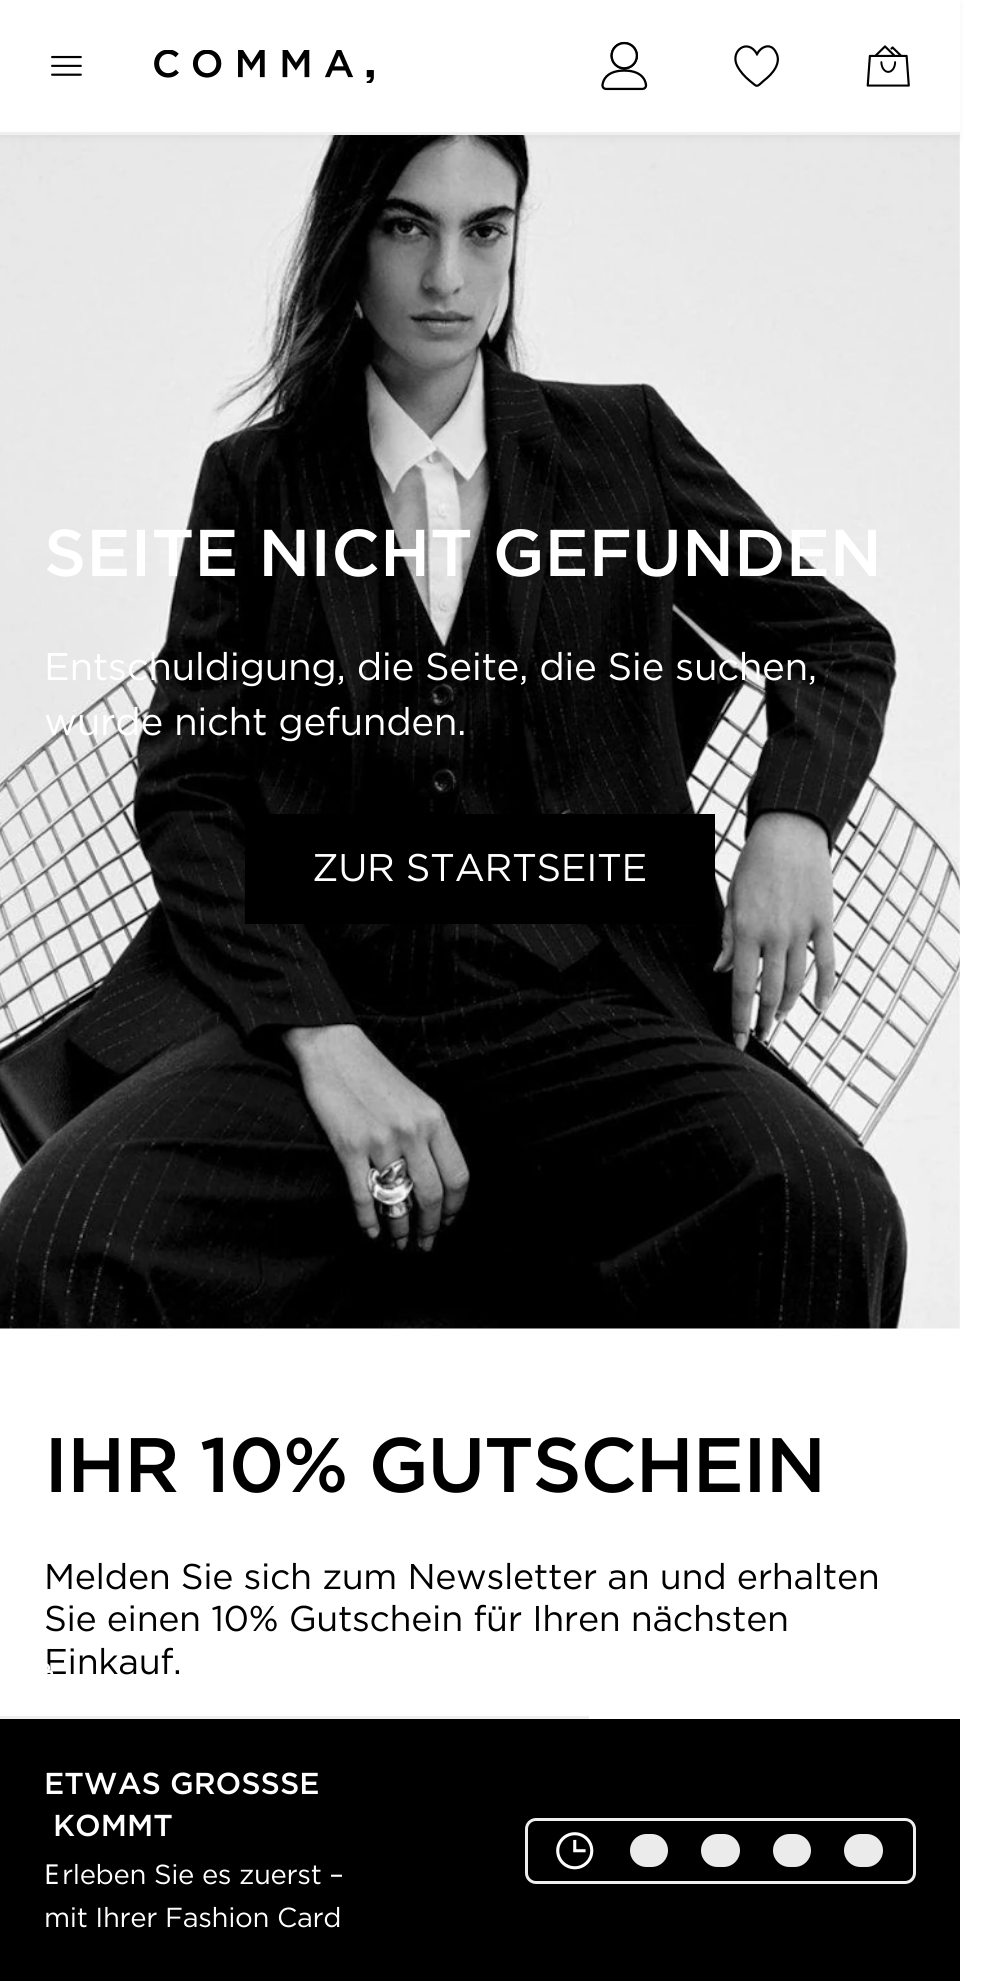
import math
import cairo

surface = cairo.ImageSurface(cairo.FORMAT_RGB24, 1000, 1981)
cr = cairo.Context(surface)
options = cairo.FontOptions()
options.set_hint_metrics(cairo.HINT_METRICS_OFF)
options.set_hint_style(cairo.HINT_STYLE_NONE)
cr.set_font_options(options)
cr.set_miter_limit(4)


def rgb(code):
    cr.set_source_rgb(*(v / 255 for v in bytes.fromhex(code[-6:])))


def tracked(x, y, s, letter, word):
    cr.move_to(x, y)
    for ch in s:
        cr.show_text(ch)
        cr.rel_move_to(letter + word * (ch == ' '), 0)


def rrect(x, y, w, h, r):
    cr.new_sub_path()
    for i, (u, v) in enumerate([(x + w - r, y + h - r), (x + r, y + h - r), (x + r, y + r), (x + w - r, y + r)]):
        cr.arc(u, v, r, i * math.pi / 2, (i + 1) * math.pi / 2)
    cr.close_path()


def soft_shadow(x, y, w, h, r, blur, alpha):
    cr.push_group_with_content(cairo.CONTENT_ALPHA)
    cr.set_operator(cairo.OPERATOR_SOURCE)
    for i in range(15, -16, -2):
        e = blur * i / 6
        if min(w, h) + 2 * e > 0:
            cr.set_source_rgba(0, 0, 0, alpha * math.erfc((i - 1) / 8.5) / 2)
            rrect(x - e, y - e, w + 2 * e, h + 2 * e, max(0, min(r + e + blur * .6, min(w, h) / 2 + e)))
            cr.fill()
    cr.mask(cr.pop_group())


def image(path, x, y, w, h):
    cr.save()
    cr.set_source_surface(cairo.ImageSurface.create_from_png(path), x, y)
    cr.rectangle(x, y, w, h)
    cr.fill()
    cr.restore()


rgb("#ffffff")
cr.paint()
image("img/5.png", 0, 135, 960, 1194)
rgb("#000000")
soft_shadow(0, 3, 960, 135, 0, 3, 0.05)
rgb("#ffffff")
cr.rectangle(0, 0, 960, 132)
cr.fill()
rgb("#efefef")
cr.rectangle(0, 132, 960, 3)
cr.fill()
image("img/1.png", 51, 55, 31, 21)
image("img/2.png", 154, 50, 220, 33)
image("img/3.png", 601, 41, 47, 50)
cr.new_path()
cr.move_to(775.5, 51.5)
cr.curve_to(770.5, 42.5, 761, 46.5, 757, 54)
cr.curve_to(747.5, 37.5, 730, 51, 737, 65.5)
cr.curve_to(740, 71.5, 744.5, 76.5, 750, 81)
cr.curve_to(758, 87.5, 756, 87.5, 764, 80.5)
cr.curve_to(772.5, 74, 782.5, 62.5, 775.5, 51.5)
cr.close_path()
rgb("#000000")
cr.set_line_width(2.2)
cr.stroke()
image("img/4.png", 866, 45, 44, 42)
for x, y, w, h, color in [
    (245, 814, 470, 110, "#000000"),
    (0, 1719, 960, 262, "#000000"),
    (0, 1716, 589, 3, "#efefef"),
]:
    rgb(color)
    cr.rectangle(x, y, w, h)
    cr.fill()
rrect(526.5, 1819.5, 388, 63, 9.5)
cr.set_line_width(3)
cr.stroke()
image("img/7.png", 556, 1832, 38, 38)
rgb("#ebebeb")
rrect(630, 1834, 38, 33, 16.5)
cr.fill()
rrect(701, 1834, 39, 33, 16.5)
cr.fill()
rrect(773, 1834, 38, 33, 16.5)
cr.fill()
rrect(844, 1834, 39, 33, 16.5)
cr.fill()
cr.select_font_face("Gotham Medium")
cr.set_font_size(66)
rgb("#ffffff")
cr.move_to(44, 576)
cr.show_text("SEITE NICHT GEFUNDEN")
cr.select_font_face("Gotham")
cr.set_font_size(38.5)
for x, y, s in [
    (44, 680, "Entschuldigung, die Seite, die Sie suchen,"),
    (44, 735, "wurde nicht gefunden."),
    (312, 881, "ZUR STARTSEITE"),
]:
    tracked(x, y, s, -0.4, 0)
cr.select_font_face("Gotham Medium")
cr.set_font_size(77)
rgb("#000000")
tracked(44, 1492, "IHR 10% GUTSCHEIN", -1.5, 0)
cr.select_font_face("Gotham")
cr.set_font_size(35.75)
for x, y, s in [
    (44, 1589, "Melden Sie sich zum Newsletter an und erhalten"),
    (44, 1631, "Sie einen 10% Gutschein für Ihren nächsten"),
    (44, 1674, "Einkauf."),
]:
    tracked(x, y, s, -0.35, 0)
image("img/6.png", 47, 1663, 7, 11)
cr.select_font_face("Gotham Medium")
cr.set_font_size(30.25)
rgb("#ffffff")
cr.move_to(44, 1794)
cr.show_text("ETWAS GROSSSE")
cr.move_to(53, 1836)
cr.show_text("KOMMT")
cr.select_font_face("Noto Sans")
cr.set_font_size(27.5)
tracked(44, 1884, "E", -0.35, 0)
cr.select_font_face("Gotham")
tracked(62, 1884, "rleben Sie es zuerst –", -0.35, 0)
tracked(44, 1927, "mit Ihrer Fashion Card", -0.35, 0)
surface.write_to_png("page.png")
